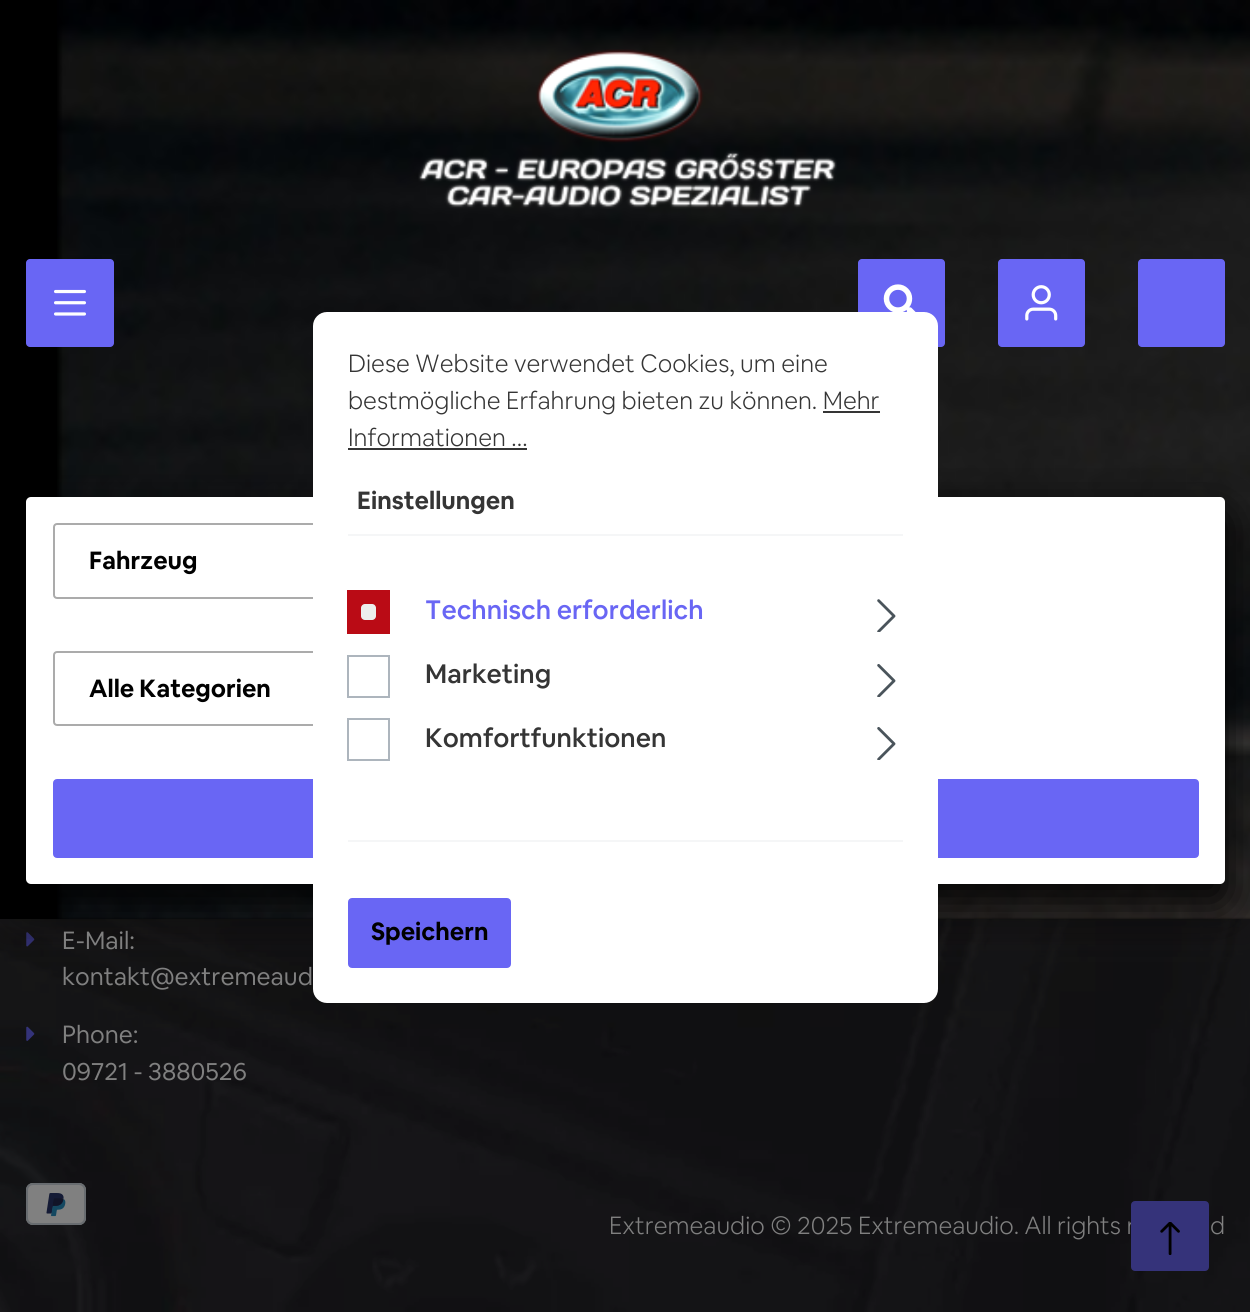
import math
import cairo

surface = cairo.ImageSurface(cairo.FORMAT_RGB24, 1250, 1312)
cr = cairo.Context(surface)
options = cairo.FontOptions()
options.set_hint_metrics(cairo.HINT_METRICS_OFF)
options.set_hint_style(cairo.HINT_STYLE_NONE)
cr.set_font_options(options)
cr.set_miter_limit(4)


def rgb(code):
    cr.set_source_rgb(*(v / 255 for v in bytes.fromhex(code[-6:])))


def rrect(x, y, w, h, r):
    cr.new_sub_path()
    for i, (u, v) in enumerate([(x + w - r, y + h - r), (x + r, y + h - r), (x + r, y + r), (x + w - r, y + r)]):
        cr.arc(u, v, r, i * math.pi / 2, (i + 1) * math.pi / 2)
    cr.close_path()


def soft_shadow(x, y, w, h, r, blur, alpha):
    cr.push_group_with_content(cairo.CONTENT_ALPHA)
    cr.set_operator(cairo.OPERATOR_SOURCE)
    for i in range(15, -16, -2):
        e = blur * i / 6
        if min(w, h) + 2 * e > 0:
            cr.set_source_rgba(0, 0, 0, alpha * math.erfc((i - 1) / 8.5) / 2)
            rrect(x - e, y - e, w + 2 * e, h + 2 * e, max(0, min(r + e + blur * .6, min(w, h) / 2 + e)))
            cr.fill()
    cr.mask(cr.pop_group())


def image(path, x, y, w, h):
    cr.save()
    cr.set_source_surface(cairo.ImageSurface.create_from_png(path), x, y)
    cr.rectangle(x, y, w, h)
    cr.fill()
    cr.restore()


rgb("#ffffff")
cr.paint()
image("img/8.png", 0, 919, 1250, 393)
image("img/9.png", 26, 932, 9, 15)
rgb("#181615")
soft_shadow(0, 18, 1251, 918, 0, 17.5, 0.3)
rgb("#000000")
cr.rectangle(0, 0, 1250, 919)
cr.fill()
image("img/1.png", 57, 0, 1193, 919)
image("img/2.png", 418, 49, 419, 160)
rgb("#6966f4")
rrect(26, 259, 88, 88, 4)
cr.fill()
image("img/3.png", 54, 289, 32, 27)
rrect(858, 259, 87, 88, 4)
cr.fill()
image("img/4.png", 883, 284, 33, 28)
rrect(998, 259, 87, 88, 4)
cr.fill()
image("img/5.png", 1025, 285, 33, 36)
rrect(1138, 259, 87, 88, 4)
cr.fill()
rgb("#000000")
soft_shadow(26, 515, 1199, 386, 5, 22, 1)
rgb("#ffffff")
rrect(26, 497, 1199, 387, 5)
cr.fill()
rrect(54, 524, 435, 74, 3)
rgb("#ababab")
cr.stroke()
rrect(54, 652, 435, 73, 3)
cr.stroke()
rgb("#6966f4")
rrect(55, 781, 1142, 75, 2)
cr.fill_preserve()
cr.set_line_width(4)
cr.stroke()
rgb("#ffffff")
rrect(313, 312, 625, 691, 14)
cr.fill()
for x, y, w, h, color in [
    (348, 534, 555, 2, "#f5f6f7"),
    (823, 411, 57, 2, "#353535"),
    (348, 448, 179, 2, "#353535"),
    (348, 840, 555, 2, "#f5f6f7"),
    (347, 590, 43, 44, "#ba0b15"),
]:
    rgb(color)
    cr.rectangle(x, y, w, h)
    cr.fill()
rgb("#edeeed")
rrect(361, 604, 15, 16, 4)
cr.fill()
image("img/6.png", 877, 599, 19, 33)
cr.rectangle(348, 656, 41, 41)
rgb("#adb5bd")
cr.set_line_width(2)
cr.stroke()
image("img/7.png", 877, 664, 19, 33)
cr.rectangle(348, 719, 41, 41)
cr.stroke()
image("img/7.png", 877, 727, 19, 33)
rgb("#6966f4")
rrect(349, 899, 161, 68, 3)
cr.fill_preserve()
cr.stroke()
image("img/10.png", 26, 1026, 9, 15)
image("img/11.png", 26, 1183, 60, 42)
cr.select_font_face("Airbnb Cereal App", cairo.FONT_SLANT_NORMAL, cairo.FONT_WEIGHT_BOLD)
cr.set_font_size(24.5)
rgb("#000000")
cr.move_to(89, 569)
cr.show_text("Fahrzeug")
cr.move_to(89, 697)
cr.show_text("Alle Kategorien")
cr.select_font_face("Airbnb Cereal App Light")
rgb("#353535")
for x, y, s in [
    (348, 372, "Diese Website verwendet Cookies, um eine"),
    (348, 409, "bestmögliche Erfahrung bieten zu können. Mehr"),
    (348, 446, "Informationen ..."),
]:
    cr.move_to(x, y)
    cr.show_text(s)
cr.select_font_face("Airbnb Cereal App", cairo.FONT_SLANT_NORMAL, cairo.FONT_WEIGHT_BOLD)
cr.move_to(357, 509)
cr.show_text("Einstellungen")
cr.select_font_face("Airbnb Cereal App Medium")
cr.set_font_size(26.25)
rgb("#6966f4")
cr.move_to(425, 619)
cr.show_text("Technisch erforderlich")
rgb("#353535")
cr.move_to(425, 683)
cr.show_text("Marketing")
cr.move_to(425, 747)
cr.show_text("Komfortfunktionen")
cr.select_font_face("Airbnb Cereal App", cairo.FONT_SLANT_NORMAL, cairo.FONT_WEIGHT_BOLD)
cr.set_font_size(24.5)
rgb("#000000")
cr.move_to(371, 940)
cr.show_text("Speichern")
cr.select_font_face("Airbnb Cereal App")
rgb("#808080")
for x, y, s in [
    (62, 949, "E-Mail:"),
    (62, 985, "kontakt@extremeaud"),
    (62, 1043, "Phone:"),
    (62, 1080, "09721 - 3880526"),
]:
    cr.move_to(x, y)
    cr.show_text(s)
cr.select_font_face("Airbnb Cereal App Light")
cr.move_to(609, 1234)
cr.show_text("Extremeaudio © 2025 Extremeaudio. All rights r")
cr.move_to(1210, 1234)
cr.show_text("d")
rgb("#35337a")
rrect(1132, 1202, 76, 68, 3)
cr.fill_preserve()
cr.stroke()
image("img/12.png", 1160, 1222, 20, 33)
surface.write_to_png("page.png")
